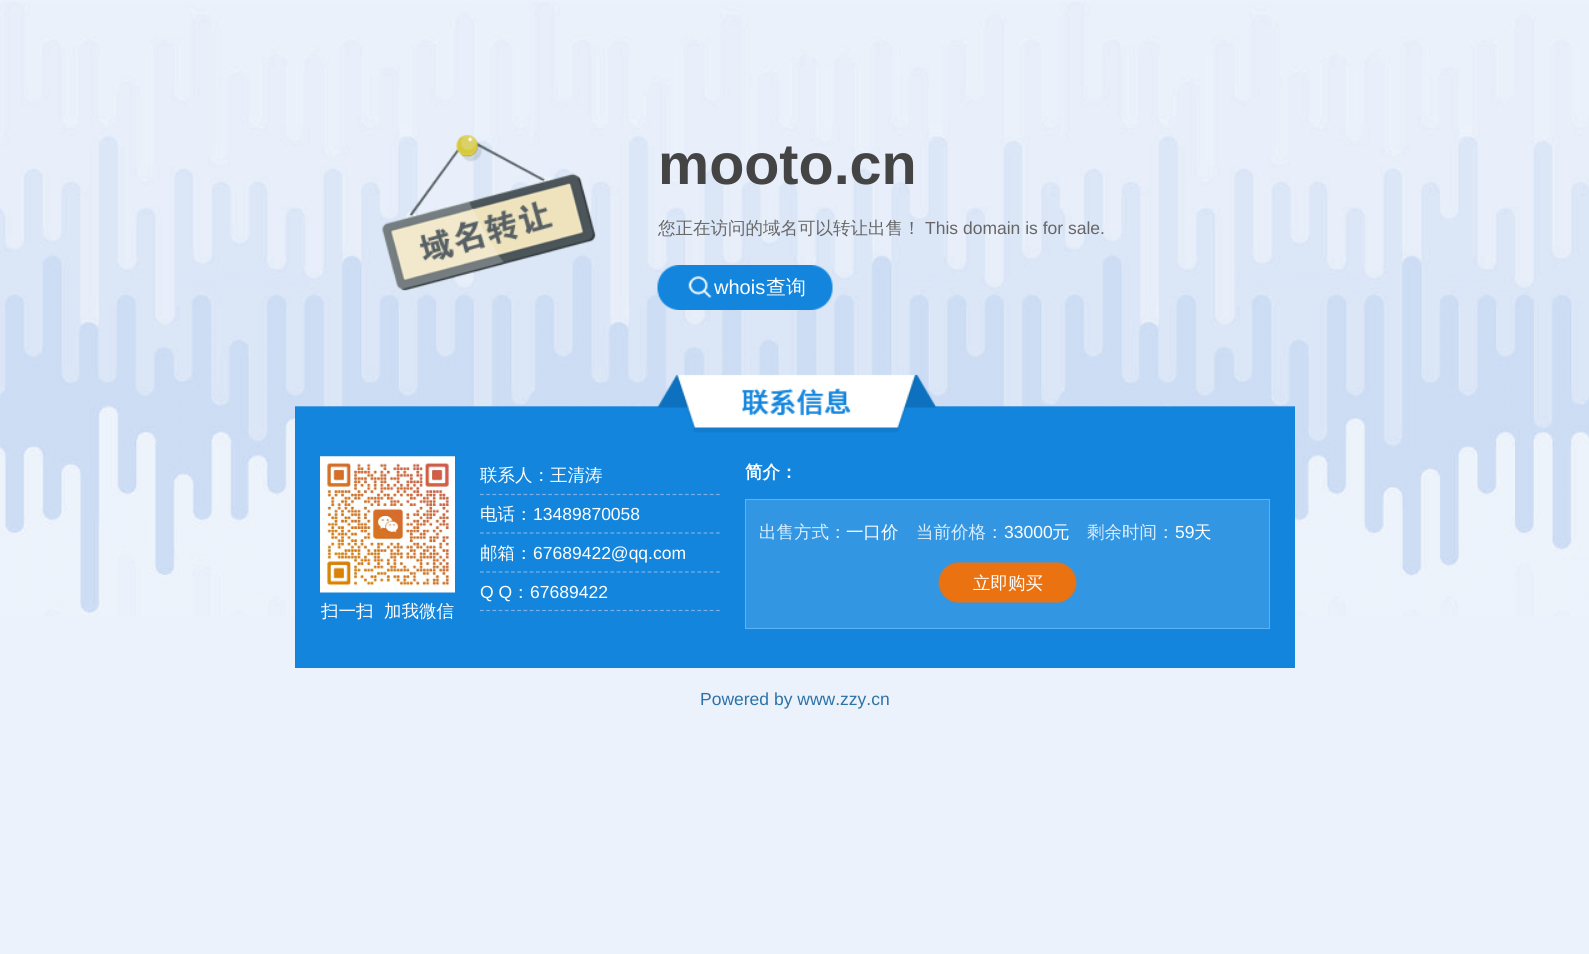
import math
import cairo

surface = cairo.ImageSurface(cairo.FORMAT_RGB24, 1589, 954)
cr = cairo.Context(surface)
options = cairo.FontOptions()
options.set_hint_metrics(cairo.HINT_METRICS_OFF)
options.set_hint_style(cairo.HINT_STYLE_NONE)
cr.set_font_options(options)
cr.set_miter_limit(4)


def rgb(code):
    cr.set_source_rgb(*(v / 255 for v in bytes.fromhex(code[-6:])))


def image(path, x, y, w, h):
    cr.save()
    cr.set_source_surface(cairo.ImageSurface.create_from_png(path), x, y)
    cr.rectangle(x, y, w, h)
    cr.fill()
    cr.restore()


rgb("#ecf2fb")
cr.paint()
image("img/1.png", 0, 2, 1589, 614)
image("img/2.png", 295, 134, 1000, 316)
image("img/3.png", 657, 265, 176, 45)
image("img/4.png", 688, 276, 24, 22)
rgb("#1385dd")
cr.rectangle(295, 450, 1000, 218)
cr.fill()
cr.new_path()
cr.move_to(480, 494.5)
cr.line_to(720, 494.5)
rgb("#7aafe8")
cr.set_line_width(1.2)
cr.set_dash([3.75, 2.46])
cr.stroke()
cr.new_path()
cr.move_to(480, 533)
cr.line_to(720, 533)
cr.stroke()
cr.new_path()
cr.move_to(480, 572)
cr.line_to(720, 572)
cr.stroke()
cr.new_path()
cr.move_to(480, 610.5)
cr.line_to(720, 610.5)
cr.stroke()
image("img/5.png", 320, 456, 135, 137)
rgb("#3296e3")
cr.rectangle(745.5, 499.5, 524, 129)
cr.fill_preserve()
rgb("#5ab3f7")
cr.set_line_width(1)
cr.set_dash([])
cr.stroke()
image("img/6.png", 938, 562, 139, 41)
cr.select_font_face("Liberation Sans", cairo.FONT_SLANT_NORMAL, cairo.FONT_WEIGHT_BOLD)
cr.set_font_size(57.5)
rgb("#444444")
cr.move_to(658, 184)
cr.show_text("mooto.cn")
cr.select_font_face("WenQuanYi Zen Hei Medium")
cr.set_font_size(17.5)
rgb("#666666")
cr.move_to(658, 234)
cr.show_text("您正在访问的域名可以转让出售！")
cr.select_font_face("Liberation Sans")
cr.move_to(925, 234)
cr.show_text("This domain is for sale.")
cr.set_font_size(20)
rgb("#ffffff")
cr.move_to(714, 294)
cr.show_text("whois")
cr.select_font_face("WenQuanYi Zen Hei Medium")
cr.move_to(766, 294)
cr.show_text("查询")
cr.set_font_size(17.5)
cr.move_to(480, 481)
cr.show_text("联系人：王清涛")
cr.move_to(480, 520)
cr.show_text("电话：")
cr.select_font_face("Liberation Sans")
cr.move_to(533, 520)
cr.show_text("13489870058")
cr.select_font_face("WenQuanYi Zen Hei Medium")
cr.move_to(480, 559)
cr.show_text("邮箱：")
cr.select_font_face("Liberation Sans")
cr.move_to(533, 559)
cr.show_text("67689422@qq.com")
cr.move_to(480, 598)
cr.show_text("Q Q")
cr.select_font_face("WenQuanYi Zen Hei Medium")
cr.move_to(512, 598)
cr.show_text("：")
cr.select_font_face("Liberation Sans")
cr.move_to(530, 598)
cr.show_text("67689422")
cr.select_font_face("WenQuanYi Zen Hei Medium")
cr.move_to(321, 617)
cr.show_text("扫一扫")
cr.move_to(384, 617)
cr.show_text("加我微信")
cr.select_font_face("WenQuanYi Zen Hei", cairo.FONT_SLANT_NORMAL, cairo.FONT_WEIGHT_BOLD)
cr.move_to(745, 478)
cr.show_text("简介：")
cr.select_font_face("WenQuanYi Zen Hei Medium")
rgb("#d9eeff")
cr.move_to(759, 538)
cr.show_text("出售方式：")
rgb("#ffffff")
cr.move_to(846, 538)
cr.show_text("一口价")
rgb("#d9eeff")
cr.move_to(916, 538)
cr.show_text("当前价格：")
cr.select_font_face("Liberation Sans")
rgb("#ffffff")
cr.move_to(1004, 538)
cr.show_text("33000")
cr.select_font_face("WenQuanYi Zen Hei Medium")
cr.move_to(1052, 538)
cr.show_text("元")
rgb("#d9eeff")
cr.move_to(1087, 538)
cr.show_text("剩余时间：")
cr.select_font_face("Liberation Sans")
rgb("#ffffff")
cr.move_to(1175, 538)
cr.show_text("59")
cr.select_font_face("WenQuanYi Zen Hei Medium")
cr.move_to(1194, 538)
cr.show_text("天")
cr.move_to(973, 589)
cr.show_text("立即购买")
cr.select_font_face("Liberation Sans")
rgb("#2c72a8")
cr.move_to(700, 705)
cr.show_text("Powered by www.zzy.cn")
surface.write_to_png("page.png")
